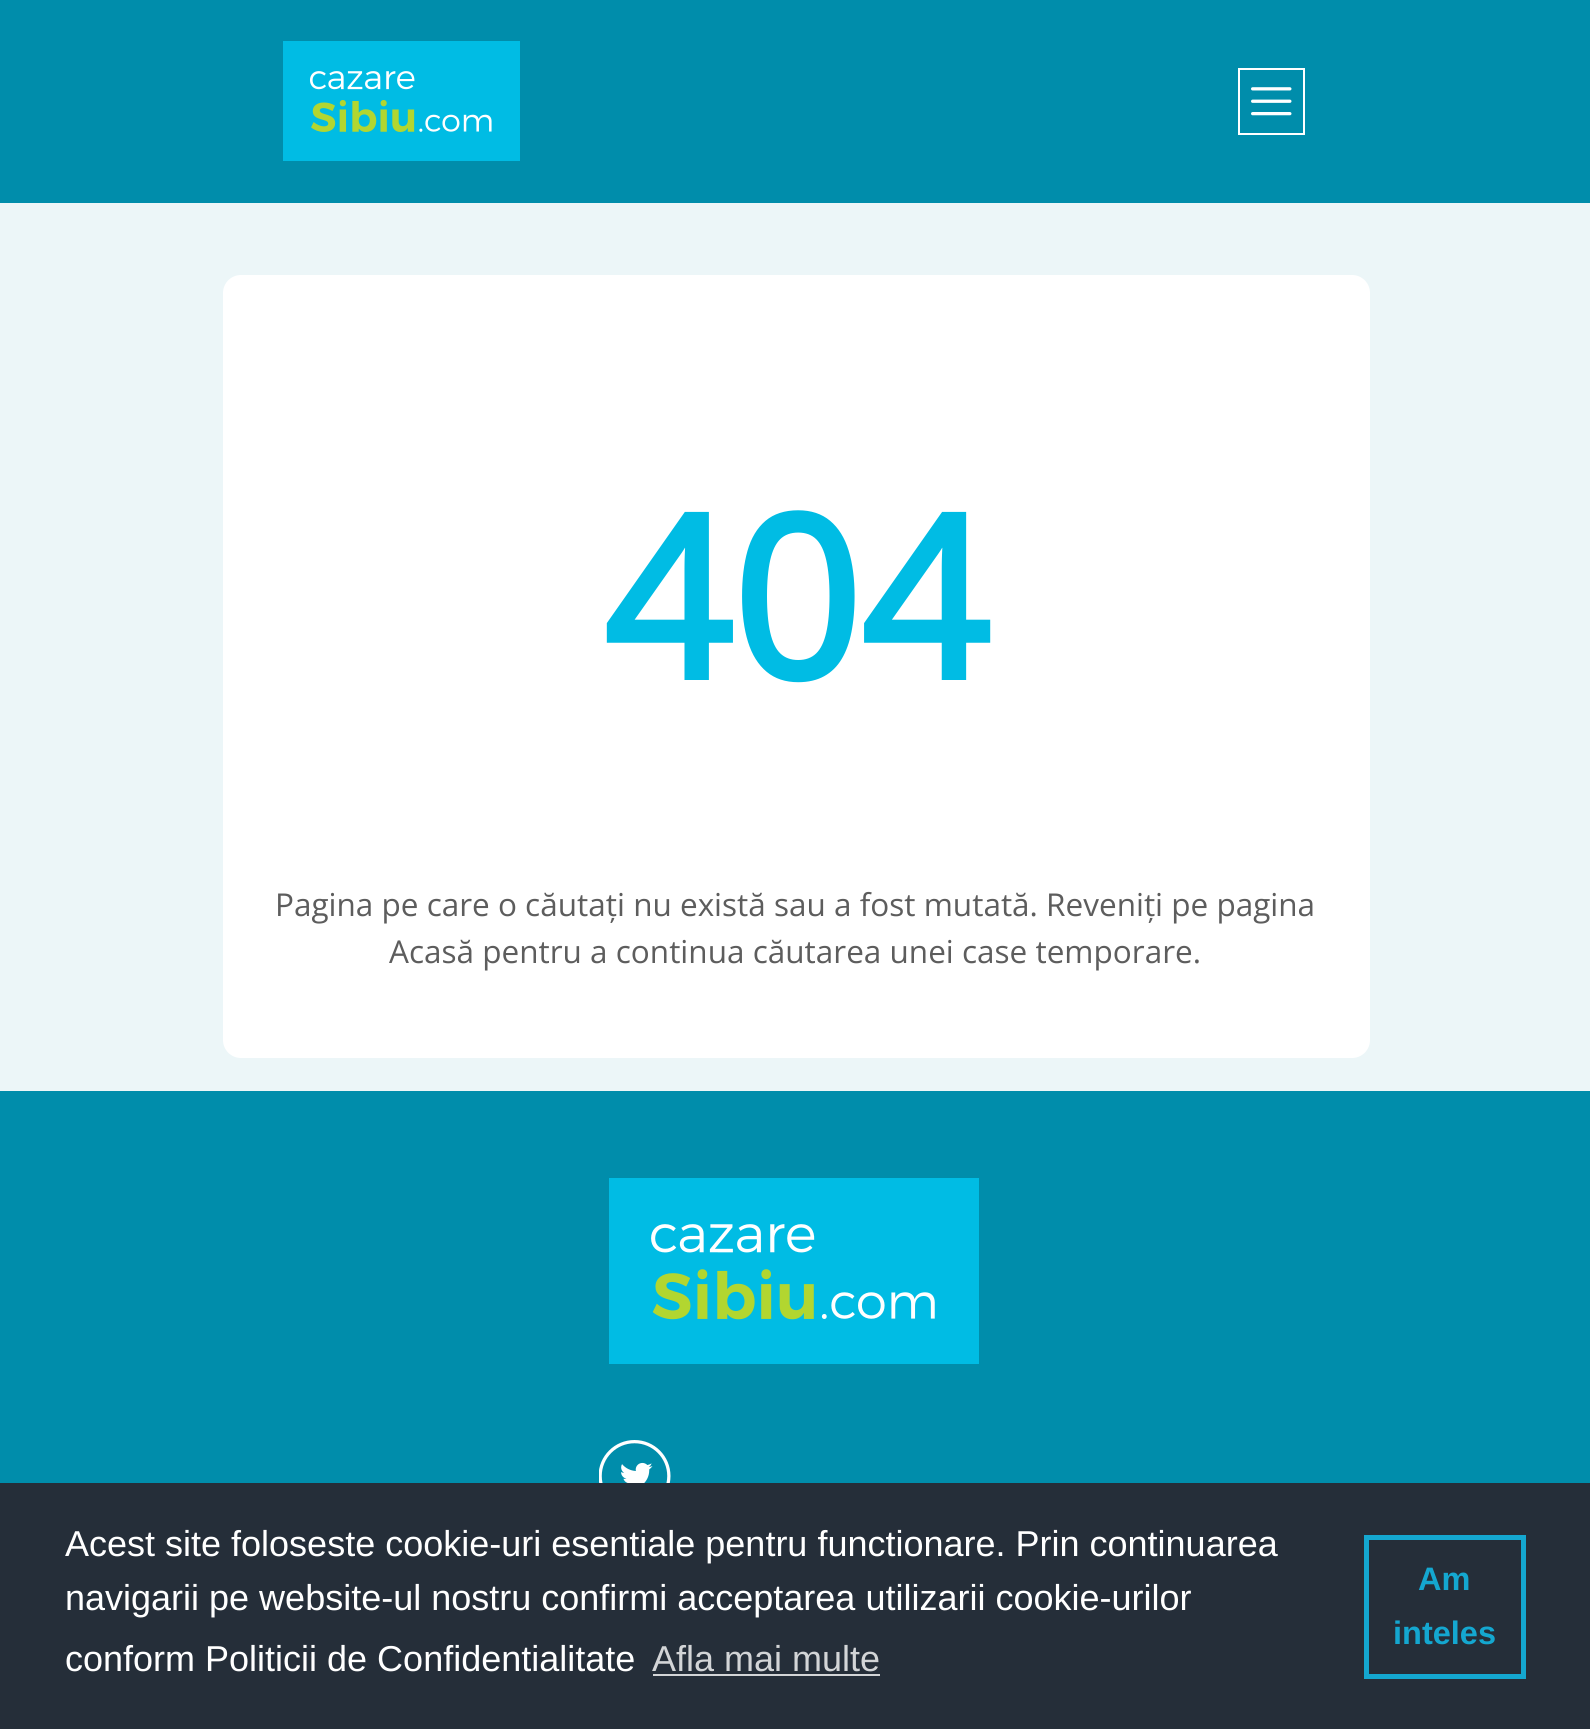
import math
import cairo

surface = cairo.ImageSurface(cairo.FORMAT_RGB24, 1590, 1729)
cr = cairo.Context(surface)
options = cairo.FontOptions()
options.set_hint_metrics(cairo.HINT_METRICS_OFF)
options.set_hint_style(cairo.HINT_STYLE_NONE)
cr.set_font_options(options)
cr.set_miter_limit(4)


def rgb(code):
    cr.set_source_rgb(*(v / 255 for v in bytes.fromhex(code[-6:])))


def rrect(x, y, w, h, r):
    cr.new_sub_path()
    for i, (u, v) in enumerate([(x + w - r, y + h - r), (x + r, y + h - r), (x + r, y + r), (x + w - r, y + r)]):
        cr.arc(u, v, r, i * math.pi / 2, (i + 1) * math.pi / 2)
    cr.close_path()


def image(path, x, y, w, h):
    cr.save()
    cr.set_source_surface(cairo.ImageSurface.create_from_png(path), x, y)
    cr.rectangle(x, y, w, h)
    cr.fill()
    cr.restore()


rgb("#ecf6f8")
cr.paint()
rgb("#008dab")
cr.rectangle(0, 0, 1590, 203)
cr.fill()
image("img/1.png", 283, 41, 237, 120)
cr.rectangle(1239, 69, 65, 65)
rgb("#ffffff")
cr.stroke()
image("img/2.png", 1251, 87, 41, 29)
rrect(224, 276, 1145, 781, 17)
cr.fill_preserve()
cr.stroke()
rgb("#008dab")
cr.rectangle(0, 1091, 1590, 392)
cr.fill()
image("img/3.png", 609, 1178, 370, 186)
image("img/4.png", 599, 1440, 72, 43)
rgb("#252e39")
cr.rectangle(0, 1483, 1590, 246)
cr.fill()
rgb("#d3d5d7")
cr.rectangle(653, 1674, 227, 2)
cr.fill()
cr.rectangle(1366.5, 1537.5, 157, 139)
rgb("#14a7d0")
cr.set_line_width(5)
cr.stroke()
cr.select_font_face("Open Sans", cairo.FONT_SLANT_NORMAL, cairo.FONT_WEIGHT_BOLD)
cr.set_font_size(225)
rgb("#00bce4")
cr.move_to(602, 680)
cr.show_text("404")
cr.select_font_face("Open Sans")
cr.set_font_size(31.5)
rgb("#5d5d5d")
cr.move_to(275, 916)
cr.show_text("Pagina pe care o căutați nu există sau a fost mutată. Reveniți pe pagina")
cr.move_to(389, 963)
cr.show_text("Acasă pentru a continua căutarea unei case temporare.")
cr.select_font_face("Liberation Sans")
cr.set_font_size(36)
rgb("#ffffff")
for x, y, s in [
    (65, 1556, "Acest site foloseste cookie-uri esentiale pentru functionare. Prin continuarea"),
    (65, 1610, "navigarii pe website-ul nostru confirmi acceptarea utilizarii cookie-urilor"),
    (65, 1671, "conform Politicii de Confidentialitate"),
]:
    cr.move_to(x, y)
    cr.show_text(s)
rgb("#d3d5d7")
cr.move_to(652, 1671)
cr.show_text("Afla mai multe")
cr.select_font_face("Liberation Sans", cairo.FONT_SLANT_NORMAL, cairo.FONT_WEIGHT_BOLD)
cr.set_font_size(32.5)
rgb("#14a7d0")
cr.move_to(1418, 1590)
cr.show_text("Am")
cr.move_to(1393, 1644)
cr.show_text("inteles")
surface.write_to_png("page.png")
